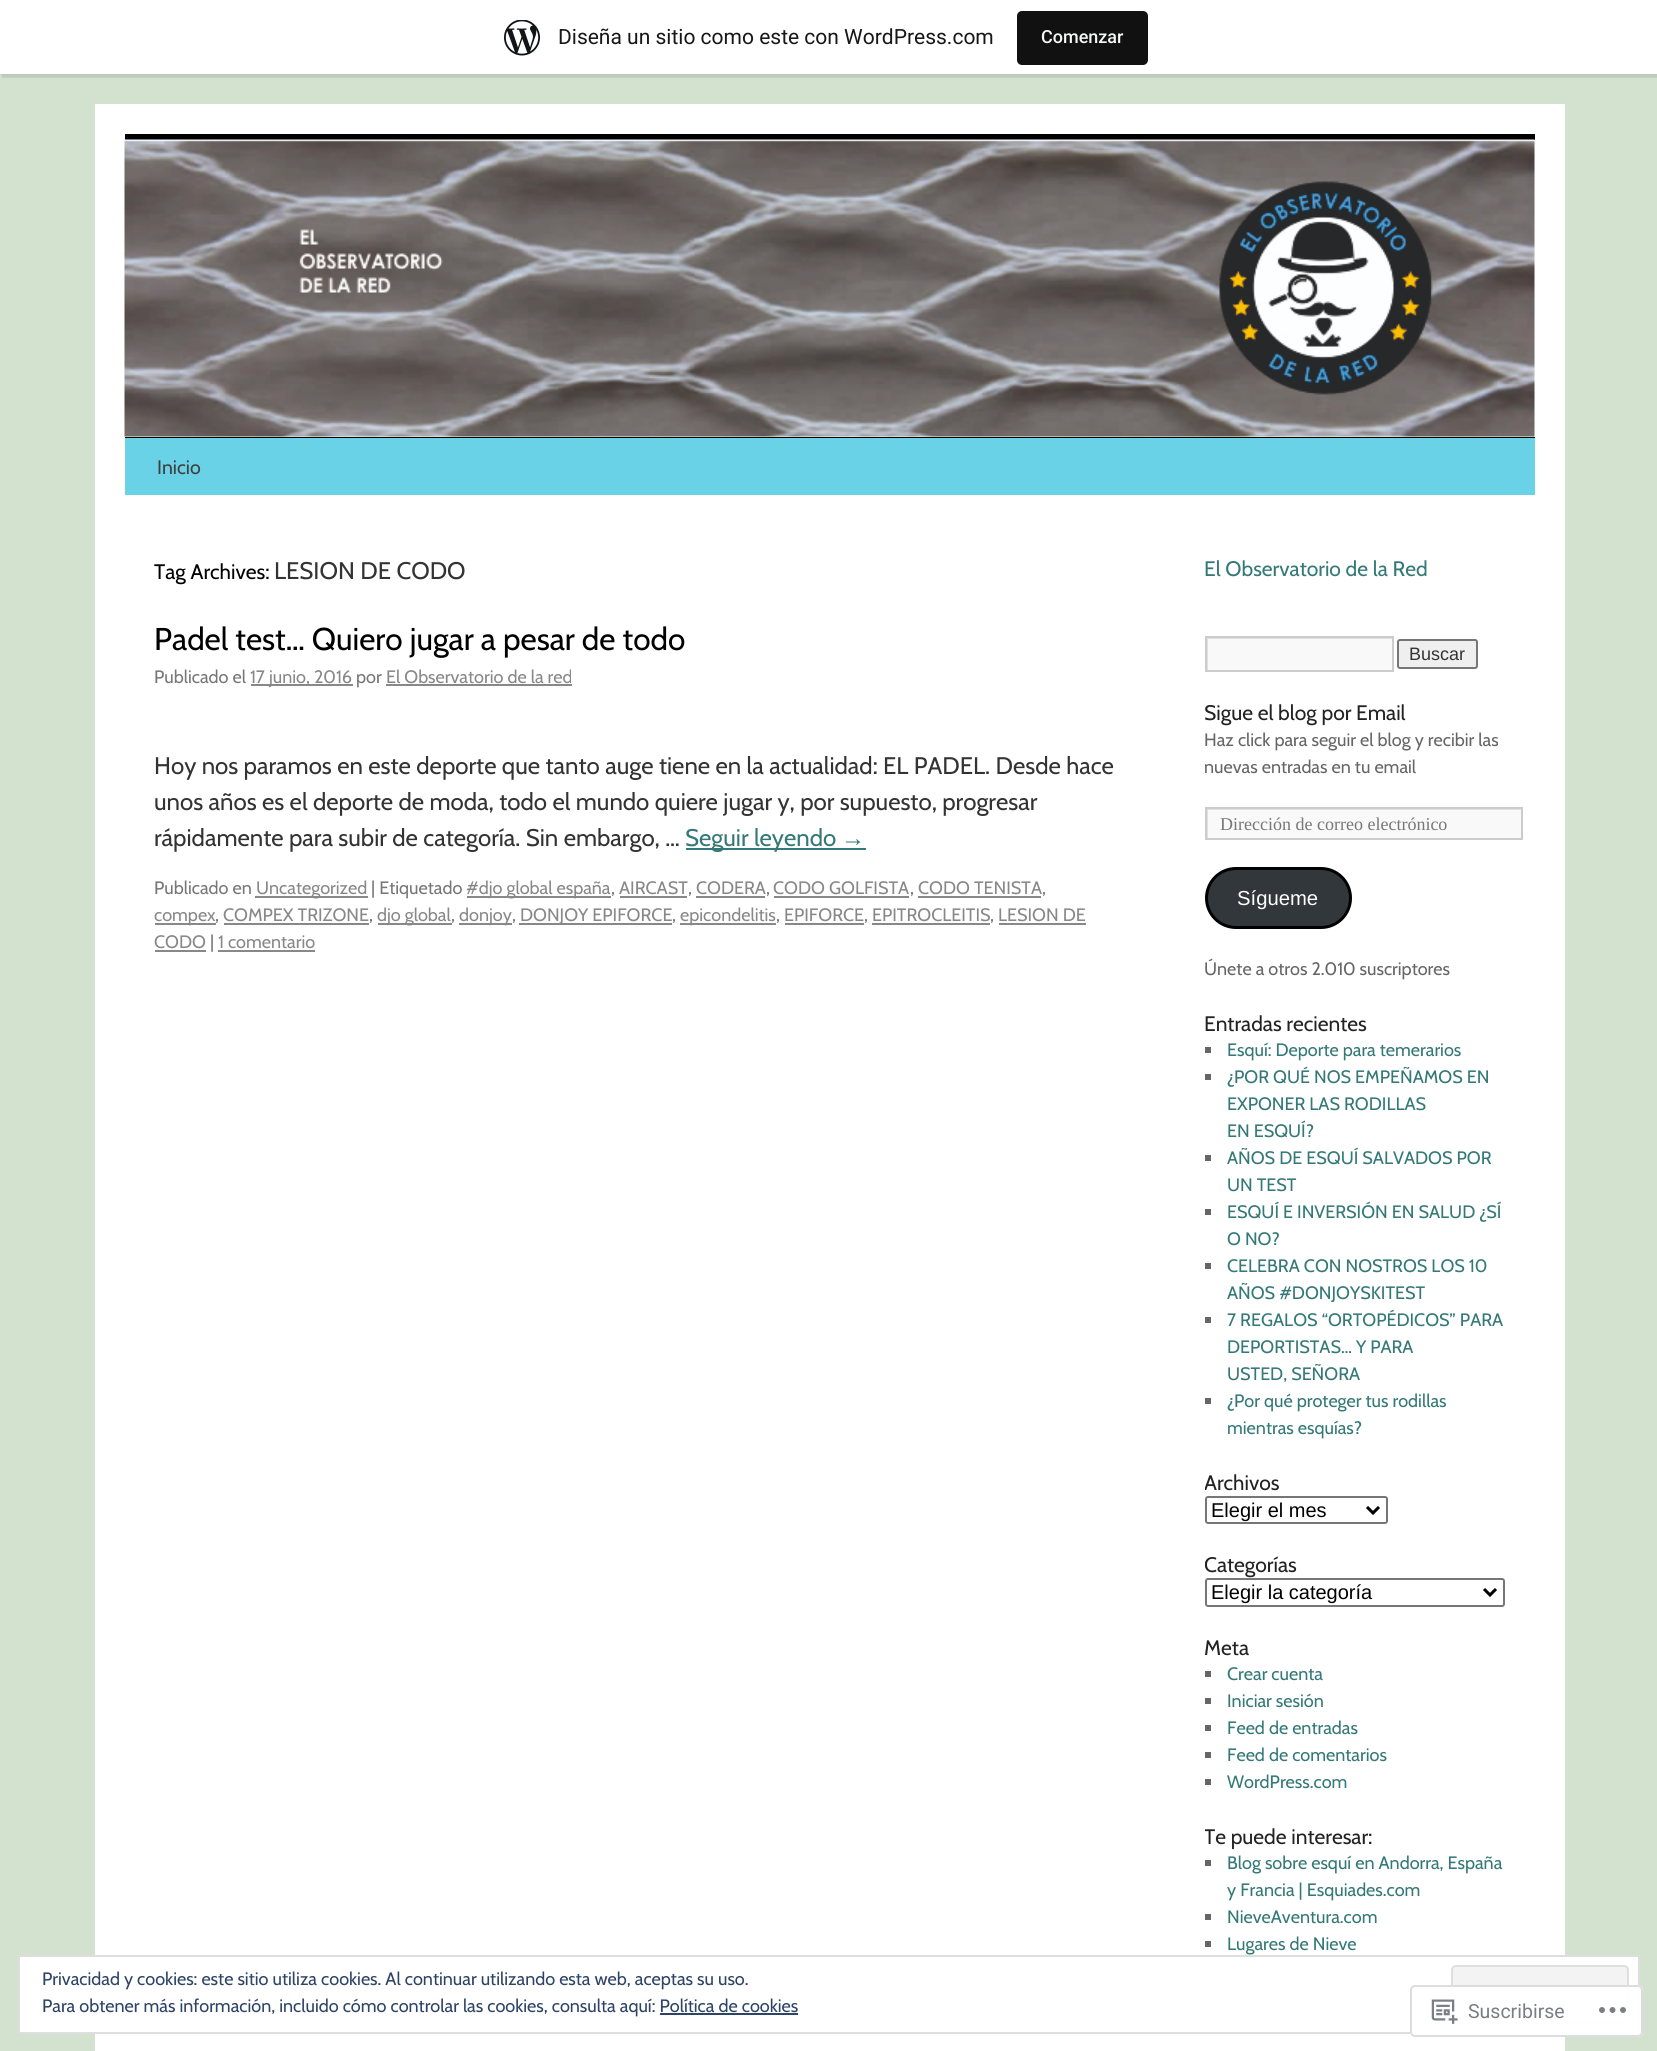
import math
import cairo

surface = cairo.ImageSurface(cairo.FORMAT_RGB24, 1657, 2051)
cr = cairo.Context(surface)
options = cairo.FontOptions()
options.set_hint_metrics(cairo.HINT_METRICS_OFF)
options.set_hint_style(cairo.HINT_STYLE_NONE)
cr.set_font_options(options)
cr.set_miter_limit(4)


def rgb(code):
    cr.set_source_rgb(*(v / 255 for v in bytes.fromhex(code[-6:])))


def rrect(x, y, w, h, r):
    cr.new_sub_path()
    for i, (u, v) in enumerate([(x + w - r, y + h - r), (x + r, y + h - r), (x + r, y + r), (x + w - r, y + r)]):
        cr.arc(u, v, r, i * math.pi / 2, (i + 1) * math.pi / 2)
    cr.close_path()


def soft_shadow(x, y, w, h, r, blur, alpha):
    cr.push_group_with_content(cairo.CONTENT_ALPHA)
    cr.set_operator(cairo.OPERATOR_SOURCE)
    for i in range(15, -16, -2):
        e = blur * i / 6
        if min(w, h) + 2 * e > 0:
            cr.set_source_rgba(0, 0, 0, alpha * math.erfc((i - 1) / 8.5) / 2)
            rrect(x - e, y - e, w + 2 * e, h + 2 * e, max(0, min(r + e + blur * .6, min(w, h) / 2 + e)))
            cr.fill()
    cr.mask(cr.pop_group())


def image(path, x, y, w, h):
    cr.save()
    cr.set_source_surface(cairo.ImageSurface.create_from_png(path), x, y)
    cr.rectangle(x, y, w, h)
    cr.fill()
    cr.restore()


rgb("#d2e2cf")
cr.paint()
rgb("#000000")
soft_shadow(0, 2, 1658, 73, 0, 1.5, 0.05)
cr.set_source_rgba(0, 0, 0, 0.08)
cr.new_path()
cr.move_to(2, 74)
cr.line_to(2, 78)
cr.line_to(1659, 78)
cr.line_to(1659, 5)
cr.line_to(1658, 5)
cr.line_to(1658, 74)
cr.close_path()
cr.fill()
rgb("#ffffff")
cr.rectangle(0, 0, 1657, 74)
cr.fill()
image("img/1.png", 504, 20, 36, 36)
rgb("#111111")
rrect(1017, 11, 131, 54, 5)
cr.fill()
for x, y, w, h, color in [
    (95, 104, 1470, 1947, "#ffffff"),
    (125, 134, 1410, 6, "#000000"),
    (125, 437, 1410, 1, "#000000"),
]:
    rgb(color)
    cr.rectangle(x, y, w, h)
    cr.fill()
image("img/2.png", 124, 139, 1411, 298)
for x, y, w, h, color in [
    (125, 438, 1410, 57, "#69d2e7"),
    (251, 684, 102, 2, "#888888"),
    (386, 684, 186, 2, "#888888"),
    (686, 848, 180, 2, "#347977"),
    (255, 896, 113, 2, "#888888"),
    (467, 896, 144, 2, "#888888"),
    (620, 896, 67, 2, "#888888"),
    (696, 896, 69, 2, "#888888"),
    (774, 896, 135, 2, "#888888"),
    (918, 896, 123, 2, "#888888"),
    (155, 923, 61, 2, "#888888"),
    (224, 923, 145, 2, "#888888"),
    (378, 923, 74, 2, "#888888"),
    (459, 923, 53, 2, "#888888"),
    (519, 923, 153, 2, "#888888"),
    (680, 923, 96, 2, "#888888"),
    (785, 923, 79, 2, "#888888"),
    (872, 923, 118, 2, "#888888"),
    (999, 923, 87, 2, "#888888"),
    (155, 950, 51, 2, "#888888"),
    (218, 950, 97, 2, "#888888"),
    (1208, 639, 184, 31, "#f9f9f9"),
]:
    rgb(color)
    cr.rectangle(x, y, w, h)
    cr.fill()
cr.save()
cr.rectangle(1206, 638, 186, 33)
cr.clip()
rgb("#e0e0e0")
cr.set_fill_rule(cairo.FILL_RULE_EVEN_ODD)
cr.new_path()
cr.move_to(1058, 489)
cr.line_to(1540, 489)
cr.line_to(1540, 819)
cr.line_to(1058, 819)
cr.close_path()
cr.move_to(1208, 639)
cr.line_to(1394, 639)
cr.line_to(1394, 672)
cr.line_to(1208, 672)
cr.close_path()
cr.fill()
cr.restore()
cr.rectangle(1206, 637, 187, 34)
rgb("#cccccc")
cr.stroke()
rgb("#efefef")
rrect(1398, 640, 79, 28, 2)
cr.fill_preserve()
rgb("#767676")
cr.stroke()
rgb("#f9f9f9")
cr.rectangle(1208, 810, 313, 28)
cr.fill()
cr.save()
cr.rectangle(1206, 809, 315, 30)
cr.clip()
rgb("#e0e0e0")
cr.set_fill_rule(cairo.FILL_RULE_EVEN_ODD)
cr.new_path()
cr.move_to(1058, 660)
cr.line_to(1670, 660)
cr.line_to(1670, 987)
cr.line_to(1058, 987)
cr.close_path()
cr.move_to(1208, 810)
cr.line_to(1522, 810)
cr.line_to(1522, 840)
cr.line_to(1208, 840)
cr.close_path()
cr.fill()
cr.restore()
cr.rectangle(1206, 808, 316, 31)
rgb("#cccccc")
cr.stroke()
rgb("#32373c")
rrect(1206.5, 868.5, 144, 59, 29.5)
cr.fill_preserve()
rgb("#000000")
cr.set_line_width(3)
cr.stroke()
for x, y, w, h, color in [
    (1205, 1047, 6, 6, "#666666"),
    (1205, 1074, 6, 6, "#666666"),
    (1205, 1155, 6, 6, "#666666"),
    (1205, 1209, 6, 6, "#666666"),
    (1205, 1263, 6, 6, "#666666"),
    (1205, 1317, 6, 6, "#666666"),
    (1205, 1398, 6, 6, "#666666"),
]:
    rgb(color)
    cr.rectangle(x, y, w, h)
    cr.fill()
rrect(1206, 1497, 181, 26, 2)
rgb("#767676")
cr.set_line_width(2)
cr.stroke()
cr.new_path()
cr.move_to(1367, 1507)
cr.line_to(1373, 1513)
cr.line_to(1379, 1507)
rgb("#000000")
cr.set_line_width(3)
cr.stroke()
rrect(1206, 1579, 298, 27, 2)
rgb("#767676")
cr.set_line_width(2)
cr.stroke()
cr.new_path()
cr.move_to(1484, 1589)
cr.line_to(1490, 1595)
cr.line_to(1496, 1589)
rgb("#000000")
cr.set_line_width(3)
cr.stroke()
for x, y, w, h, color in [
    (1205, 1671, 6, 6, "#666666"),
    (1205, 1698, 6, 6, "#666666"),
    (1205, 1725, 6, 6, "#666666"),
    (1205, 1752, 6, 6, "#666666"),
    (1205, 1779, 6, 6, "#666666"),
    (1205, 1860, 6, 6, "#666666"),
    (1205, 1914, 6, 6, "#666666"),
    (1205, 1941, 6, 6, "#666666"),
]:
    rgb(color)
    cr.rectangle(x, y, w, h)
    cr.fill()
rgb("#ffffff")
cr.rectangle(19, 1956, 1620, 77)
cr.fill_preserve()
rgb("#dedede")
cr.set_line_width(2)
cr.stroke()
rgb("#f3f3f3")
rrect(1452, 1966, 176, 57, 4)
cr.fill_preserve()
rgb("#dedede")
cr.stroke()
rgb("#2e4467")
cr.rectangle(660, 2013, 138, 2)
cr.fill()
cr.set_source_rgba(1, 1, 1, 0.98)
rrect(1410, 1985, 233, 52, 5)
cr.fill()
rrect(1411, 1986, 231, 50, 4)
cr.set_source_rgba(0.863, 0.863, 0.871, 0.98)
cr.stroke()
image("img/3.png", 1431, 1999, 27, 25)
image("img/4.png", 1599, 2007, 27, 6)
cr.select_font_face("Roboto")
cr.set_font_size(21)
rgb("#171717")
cr.move_to(558, 44)
cr.show_text("Diseña un sitio como este con WordPress.com")
cr.select_font_face("Roboto Medium")
cr.set_font_size(18)
rgb("#f6f7f7")
cr.move_to(1041, 43)
cr.show_text("Comenzar")
cr.select_font_face("Cabin")
cr.set_font_size(19.5)
rgb("#3f3f3f")
cr.move_to(157, 474)
cr.show_text("Inicio")
cr.set_font_size(21)
rgb("#000000")
cr.move_to(154, 579)
cr.show_text("Tag Archives:")
cr.set_font_size(24)
rgb("#333333")
cr.move_to(274, 579)
cr.show_text("LESION DE CODO")
cr.set_font_size(31.5)
rgb("#000000")
cr.move_to(154, 650)
cr.show_text("Padel test… Quiero jugar a pesar de todo")
cr.set_font_size(18)
rgb("#777777")
cr.move_to(154, 683)
cr.show_text("Publicado el")
rgb("#888888")
cr.move_to(250, 683)
cr.show_text("17 junio, 2016")
rgb("#777777")
cr.move_to(356, 683)
cr.show_text("por")
rgb("#888888")
cr.move_to(386, 683)
cr.show_text("El Observatorio de la red")
cr.set_font_size(24)
rgb("#333333")
for x, y, s in [
    (154, 774, "Hoy nos paramos en este deporte que tanto auge tiene en la actualidad: EL PADEL. Desde hace"),
    (154, 810, "unos años es el deporte de moda, todo el mundo quiere jugar y, por supuesto, progresar"),
    (154, 846, "rápidamente para subir de categoría. Sin embargo, …"),
]:
    cr.move_to(x, y)
    cr.show_text(s)
rgb("#347977")
cr.move_to(685, 846)
cr.show_text("Seguir leyendo")
cr.select_font_face("Liberation Sans")
cr.move_to(841, 846)
cr.show_text("→")
cr.select_font_face("Cabin")
cr.set_font_size(18)
rgb("#777777")
cr.move_to(154, 894)
cr.show_text("Publicado en")
rgb("#888888")
cr.move_to(256, 894)
cr.show_text("Uncategorized")
rgb("#777777")
cr.move_to(371, 894)
cr.show_text("| Etiquetado")
rgb("#888888")
cr.move_to(466, 894)
cr.show_text("#djo global españa")
rgb("#777777")
cr.move_to(611, 894)
cr.show_text(",")
rgb("#888888")
cr.move_to(619, 894)
cr.show_text("AIRCAST")
rgb("#777777")
cr.move_to(688, 894)
cr.show_text(",")
rgb("#888888")
cr.move_to(696, 894)
cr.show_text("CODERA")
rgb("#777777")
cr.move_to(766, 894)
cr.show_text(",")
rgb("#888888")
cr.move_to(773, 894)
cr.show_text("CODO GOLFISTA")
rgb("#777777")
cr.move_to(910, 894)
cr.show_text(",")
rgb("#888888")
cr.move_to(918, 894)
cr.show_text("CODO TENISTA")
rgb("#777777")
cr.move_to(1042, 894)
cr.show_text(",")
rgb("#888888")
cr.move_to(154, 921)
cr.show_text("compex")
rgb("#777777")
cr.move_to(215, 921)
cr.show_text(",")
rgb("#888888")
cr.move_to(223, 921)
cr.show_text("COMPEX TRIZONE")
rgb("#777777")
cr.move_to(369, 921)
cr.show_text(",")
rgb("#888888")
cr.move_to(377, 921)
cr.show_text("djo global")
rgb("#777777")
cr.move_to(451, 921)
cr.show_text(",")
rgb("#888888")
cr.move_to(459, 921)
cr.show_text("donjoy")
rgb("#777777")
cr.move_to(512, 921)
cr.show_text(",")
rgb("#888888")
cr.move_to(520, 921)
cr.show_text("DONJOY EPIFORCE")
rgb("#777777")
cr.move_to(672, 921)
cr.show_text(",")
rgb("#888888")
cr.move_to(680, 921)
cr.show_text("epicondelitis")
rgb("#777777")
cr.move_to(776, 921)
cr.show_text(",")
rgb("#888888")
cr.move_to(784, 921)
cr.show_text("EPIFORCE")
rgb("#777777")
cr.move_to(864, 921)
cr.show_text(",")
rgb("#888888")
cr.move_to(872, 921)
cr.show_text("EPITROCLEITIS")
rgb("#777777")
cr.move_to(990, 921)
cr.show_text(",")
rgb("#888888")
cr.move_to(998, 921)
cr.show_text("LESION DE")
cr.move_to(154, 948)
cr.show_text("CODO")
rgb("#777777")
cr.move_to(210, 948)
cr.show_text("|")
rgb("#888888")
cr.move_to(218, 948)
cr.show_text("1 comentario")
cr.set_font_size(21)
rgb("#347977")
cr.move_to(1204, 576)
cr.show_text("El Observatorio de la Red")
cr.select_font_face("Liberation Sans")
cr.set_font_size(18)
rgb("#333333")
cr.move_to(1409, 660)
cr.show_text("Buscar")
cr.select_font_face("Cabin")
cr.set_font_size(21)
rgb("#222222")
cr.move_to(1204, 720)
cr.show_text("Sigue el blog por Email")
cr.set_font_size(18)
rgb("#666666")
cr.move_to(1204, 746)
cr.show_text("Haz click para seguir el blog y recibir las")
cr.save()
cr.rectangle(1205, 555, 330, 1430)
cr.clip()
cr.move_to(1204, 773)
cr.show_text("nuevas entradas en tu email")
cr.restore()
cr.select_font_face("Liberation Serif")
rgb("#777777")
cr.move_to(1220, 830)
cr.show_text("Dirección de correo electrónico")
cr.select_font_face("Liberation Sans")
cr.set_font_size(20.25)
rgb("#ffffff")
cr.move_to(1237, 905)
cr.show_text("Sígueme")
cr.select_font_face("Cabin")
cr.set_font_size(18)
rgb("#666666")
cr.move_to(1204, 975)
cr.show_text("Únete a otros 2.010 suscriptores")
cr.set_font_size(21)
rgb("#222222")
cr.move_to(1204, 1031)
cr.show_text("Entradas recientes")
cr.set_font_size(18)
rgb("#347977")
for x, y, s in [
    (1227, 1056, "Esquí: Deporte para temerarios"),
    (1227, 1083, "¿POR QUÉ NOS EMPEÑAMOS EN"),
    (1227, 1110, "EXPONER LAS RODILLAS"),
    (1227, 1137, "EN ESQUÍ?"),
    (1227, 1164, "AÑOS DE ESQUÍ SALVADOS POR"),
    (1227, 1191, "UN TEST"),
    (1227, 1218, "ESQUÍ E INVERSIÓN EN SALUD ¿SÍ"),
    (1227, 1245, "O NO?"),
    (1227, 1272, "CELEBRA CON NOSTROS LOS 10"),
    (1227, 1299, "AÑOS #DONJOYSKITEST"),
    (1227, 1326, "7 REGALOS “ORTOPÉDICOS” PARA"),
    (1227, 1353, "DEPORTISTAS… Y PARA"),
    (1227, 1380, "USTED, SEÑORA"),
    (1227, 1407, "¿Por qué proteger tus rodillas"),
    (1227, 1434, "mientras esquías?"),
]:
    cr.move_to(x, y)
    cr.show_text(s)
cr.save()
cr.rectangle(1205, 555, 330, 1430)
cr.clip()
cr.set_font_size(21)
rgb("#222222")
cr.move_to(1204, 1490)
cr.show_text("Archivos")
cr.restore()
cr.select_font_face("Liberation Sans")
cr.set_font_size(20)
rgb("#000000")
cr.move_to(1211, 1517)
cr.show_text("Elegir el mes")
cr.save()
cr.rectangle(1205, 555, 330, 1430)
cr.clip()
cr.select_font_face("Cabin")
cr.set_font_size(21)
rgb("#222222")
cr.move_to(1204, 1572)
cr.show_text("Categorías")
cr.restore()
cr.move_to(1211, 1599)
cr.show_text("Elegir la categoría")
cr.select_font_face("Cabin")
cr.set_font_size(21)
rgb("#222222")
cr.move_to(1204, 1655)
cr.show_text("Meta")
cr.set_font_size(18)
rgb("#347977")
for x, y, s in [
    (1227, 1680, "Crear cuenta"),
    (1227, 1707, "Iniciar sesión"),
    (1227, 1734, "Feed de entradas"),
    (1227, 1761, "Feed de comentarios"),
    (1227, 1788, "WordPress.com"),
]:
    cr.move_to(x, y)
    cr.show_text(s)
cr.save()
cr.rectangle(1205, 555, 330, 1430)
cr.clip()
cr.set_font_size(21)
rgb("#222222")
cr.move_to(1204, 1844)
cr.show_text("Te puede interesar:")
cr.restore()
for x, y, s in [
    (1227, 1869, "Blog sobre esquí en Andorra, España"),
    (1227, 1896, "y Francia | Esquiades.com"),
    (1227, 1923, "NieveAventura.com"),
    (1227, 1950, "Lugares de Nieve"),
]:
    cr.move_to(x, y)
    cr.show_text(s)
rgb("#2e4467")
cr.move_to(42, 1985)
cr.show_text("Privacidad y cookies: este sitio utiliza cookies. Al continuar utilizando esta web, aceptas su uso.")
cr.move_to(42, 2012)
cr.show_text("Para obtener más información, incluido cómo controlar las cookies, consulta aquí: Política de cookies")
cr.select_font_face("Roboto")
cr.set_font_size(19.5)
rgb("#7a7e84")
cr.move_to(1468, 2018)
cr.show_text("Suscribirse")
surface.write_to_png("page.png")
